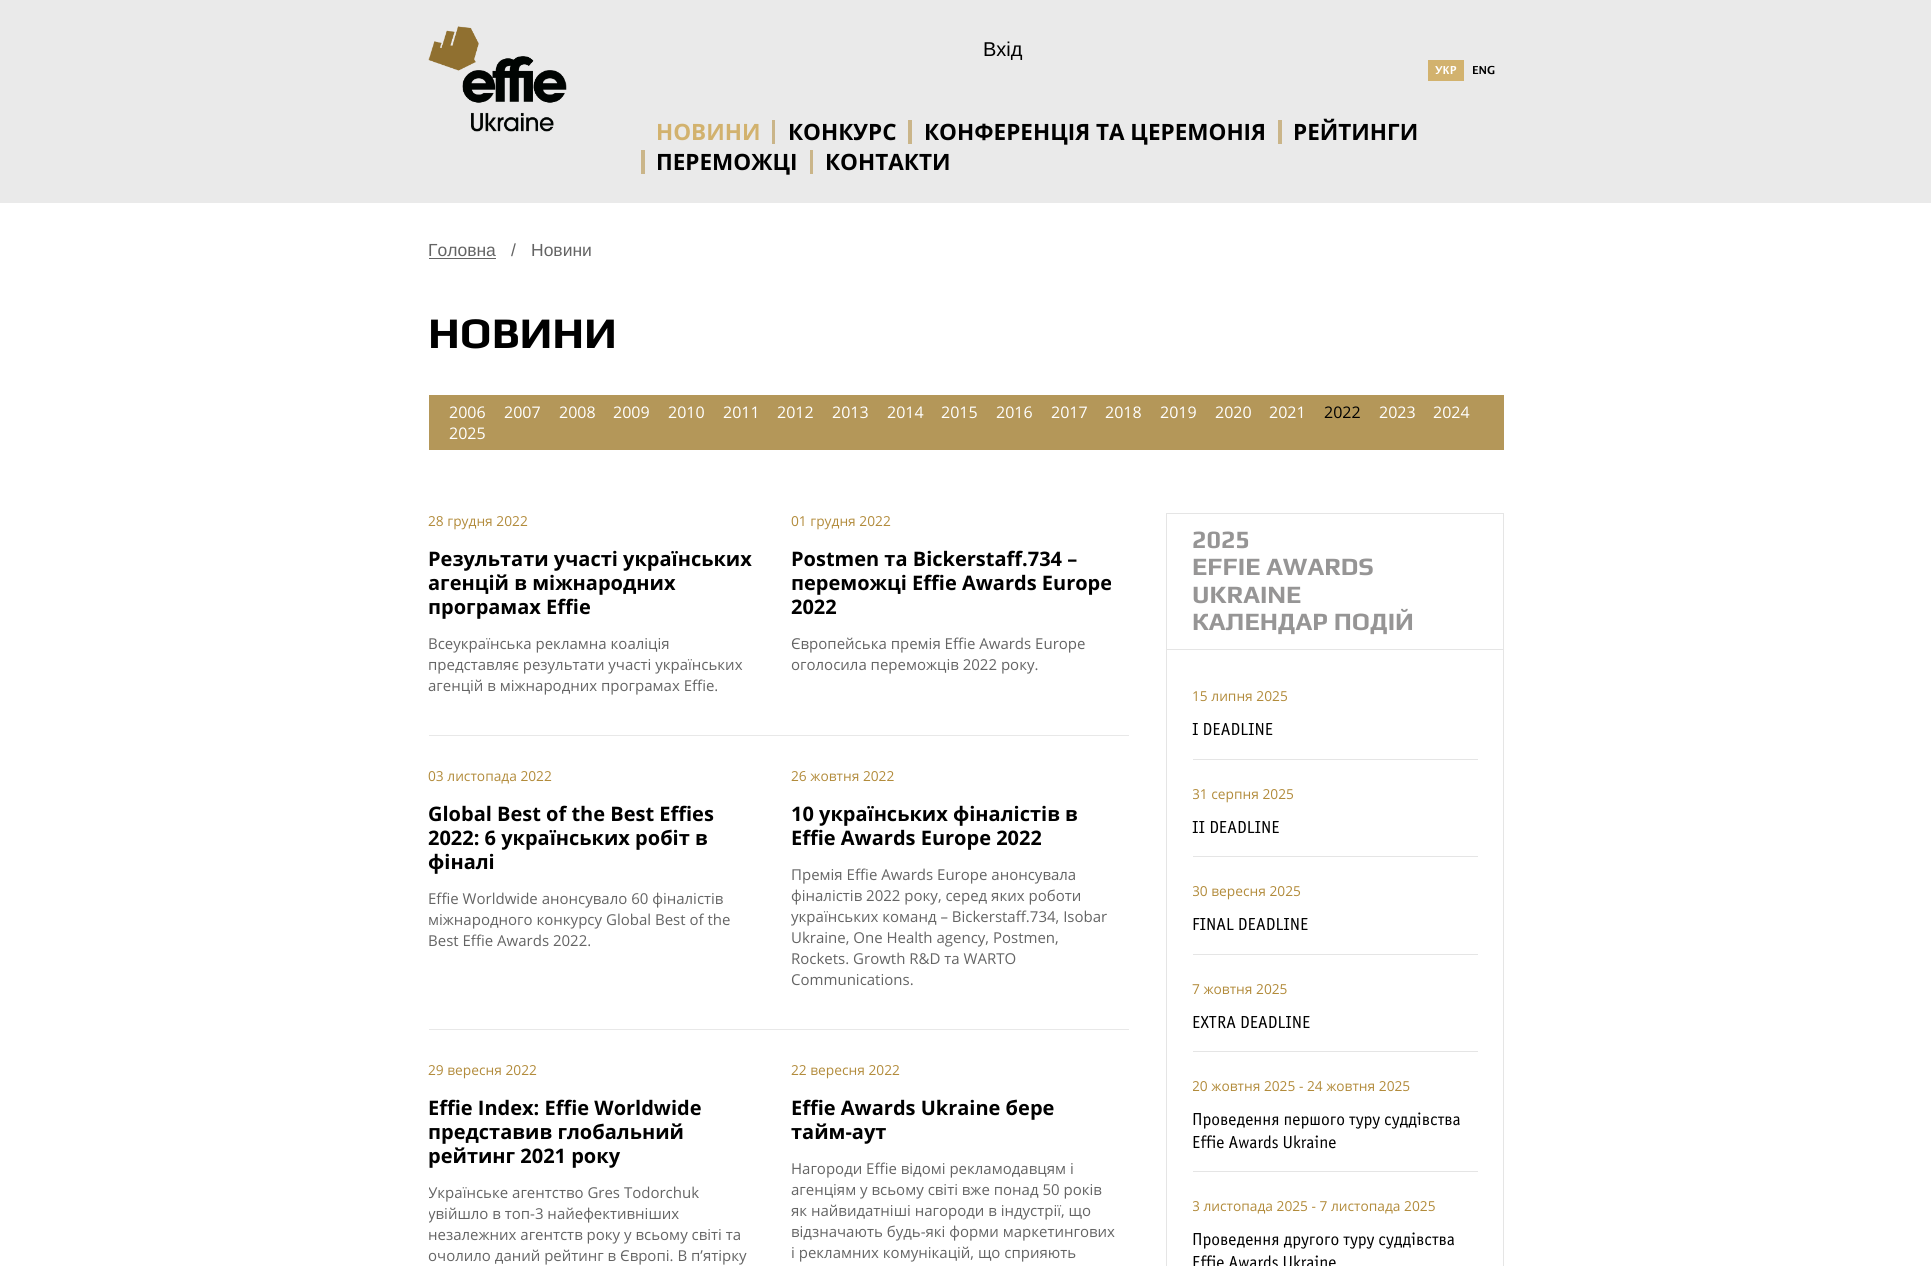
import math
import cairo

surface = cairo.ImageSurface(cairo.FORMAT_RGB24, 1931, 1266)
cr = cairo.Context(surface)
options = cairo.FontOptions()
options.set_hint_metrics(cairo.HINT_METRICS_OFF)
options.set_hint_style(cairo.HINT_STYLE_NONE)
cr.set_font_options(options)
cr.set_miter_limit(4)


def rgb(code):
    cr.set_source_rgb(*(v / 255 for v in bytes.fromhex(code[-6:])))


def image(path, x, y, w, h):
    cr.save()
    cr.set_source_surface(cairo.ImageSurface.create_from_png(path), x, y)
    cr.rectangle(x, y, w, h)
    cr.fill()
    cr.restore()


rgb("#eaeaea")
cr.paint()
image("img/1.png", 428, 26, 139, 106)
for x, y, w, h, color in [
    (1428, 60, 36, 21, "#d2b26e"),
    (772, 120, 3, 24, "#cab589"),
    (908, 120, 4, 24, "#cab589"),
    (1278, 120, 4, 24, "#cab589"),
    (641, 150, 4, 24, "#cab589"),
    (810, 150, 3, 24, "#cab589"),
    (0, 203, 1931, 1063, "#ffffff"),
    (429, 258, 67, 1, "#646464"),
    (429, 395, 1075, 55, "#b49759"),
    (429, 735, 700, 1, "#e8e8e8"),
    (429, 1029, 700, 1, "#e8e8e8"),
    (1166, 513, 338, 1, "#e5e5e5"),
    (1503, 513, 1, 136, "#e5e5e5"),
    (1166, 513, 1, 136, "#e5e5e5"),
]:
    rgb(color)
    cr.rectangle(x, y, w, h)
    cr.fill()
cr.rectangle(1166.5, 649.5, 337, 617)
cr.set_line_width(1)
cr.stroke()
for x, y, w, h, color in [
    (1193, 759, 285, 1, "#e5e5e5"),
    (1193, 856, 285, 1, "#e5e5e5"),
    (1193, 954, 285, 1, "#e5e5e5"),
    (1193, 1051, 285, 1, "#e5e5e5"),
    (1193, 1171, 285, 1, "#e5e5e5"),
]:
    rgb(color)
    cr.rectangle(x, y, w, h)
    cr.fill()
cr.select_font_face("Liberation Sans")
cr.set_font_size(20)
rgb("#000000")
cr.move_to(983, 56)
cr.show_text("Вхід")
cr.select_font_face("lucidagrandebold", cairo.FONT_SLANT_NORMAL, cairo.FONT_WEIGHT_BOLD)
cr.set_font_size(11)
rgb("#ffffff")
cr.move_to(1435, 74)
cr.show_text("УКР")
rgb("#000000")
cr.move_to(1472, 74)
cr.show_text("ENG")
cr.select_font_face("Open Sans", cairo.FONT_SLANT_NORMAL, cairo.FONT_WEIGHT_BOLD)
cr.set_font_size(22.5)
rgb("#d2b26e")
cr.move_to(656, 140)
cr.show_text("НОВИНИ")
rgb("#000000")
for x, y, s in [
    (788, 140, "КОНКУРС"),
    (924, 140, "КОНФЕРЕНЦІЯ ТА ЦЕРЕМОНІЯ"),
    (1293, 140, "РЕЙТИНГИ"),
    (656, 170, "ПЕРЕМОЖЦІ"),
    (825, 170, "КОНТАКТИ"),
]:
    cr.move_to(x, y)
    cr.show_text(s)
cr.select_font_face("Liberation Sans")
cr.set_font_size(17.5)
rgb("#646464")
for x, y, s in [
    (428, 256, "Головна"),
    (511, 256, "/"),
    (531, 256, "Новини"),
]:
    cr.move_to(x, y)
    cr.show_text(s)
cr.select_font_face("Play", cairo.FONT_SLANT_NORMAL, cairo.FONT_WEIGHT_BOLD)
cr.set_font_size(43.75)
rgb("#000000")
cr.move_to(428, 348)
cr.show_text("НОВИНИ")
cr.select_font_face("Open Sans")
cr.set_font_size(16)
rgb("#ffffff")
for x, y, s in [
    (449, 418, "2006"),
    (504, 418, "2007"),
    (559, 418, "2008"),
    (613, 418, "2009"),
    (668, 418, "2010"),
    (723, 418, "2011"),
    (777, 418, "2012"),
    (832, 418, "2013"),
    (887, 418, "2014"),
    (941, 418, "2015"),
    (996, 418, "2016"),
    (1051, 418, "2017"),
    (1105, 418, "2018"),
    (1160, 418, "2019"),
    (1215, 418, "2020"),
    (1269, 418, "2021"),
]:
    cr.move_to(x, y)
    cr.show_text(s)
rgb("#000000")
cr.move_to(1324, 418)
cr.show_text("2022")
rgb("#ffffff")
for x, y, s in [
    (1379, 418, "2023"),
    (1433, 418, "2024"),
    (449, 439, "2025"),
]:
    cr.move_to(x, y)
    cr.show_text(s)
cr.set_font_size(13.75)
rgb("#b28b3b")
cr.move_to(428, 526)
cr.show_text("28 грудня 2022")
cr.select_font_face("Open Sans", cairo.FONT_SLANT_NORMAL, cairo.FONT_WEIGHT_BOLD)
cr.set_font_size(20)
rgb("#000000")
for x, y, s in [
    (428, 566, "Результати участі українських"),
    (428, 590, "агенцій в міжнародних"),
    (428, 614, "програмах Effie"),
]:
    cr.move_to(x, y)
    cr.show_text(s)
cr.select_font_face("Open Sans")
cr.set_font_size(15)
rgb("#646464")
for x, y, s in [
    (428, 649, "Всеукраїнська рекламна коаліція"),
    (428, 670, "представляє результати участі українських"),
    (428, 691, "агенцій в міжнародних програмах Effie."),
]:
    cr.move_to(x, y)
    cr.show_text(s)
cr.set_font_size(13.75)
rgb("#b28b3b")
cr.move_to(791, 526)
cr.show_text("01 грудня 2022")
cr.select_font_face("Open Sans", cairo.FONT_SLANT_NORMAL, cairo.FONT_WEIGHT_BOLD)
cr.set_font_size(20)
rgb("#000000")
for x, y, s in [
    (791, 566, "Postmen та Bickerstaff.734 –"),
    (791, 590, "переможці Effie Awards Europe"),
    (791, 614, "2022"),
]:
    cr.move_to(x, y)
    cr.show_text(s)
cr.select_font_face("Open Sans")
cr.set_font_size(15)
rgb("#646464")
cr.move_to(791, 649)
cr.show_text("Європейська премія Effie Awards Europe")
cr.move_to(791, 670)
cr.show_text("оголосила переможців 2022 року.")
cr.set_font_size(13.75)
rgb("#b28b3b")
cr.move_to(428, 781)
cr.show_text("03 листопада 2022")
cr.select_font_face("Open Sans", cairo.FONT_SLANT_NORMAL, cairo.FONT_WEIGHT_BOLD)
cr.set_font_size(20)
rgb("#000000")
for x, y, s in [
    (428, 821, "Global Best of the Best Effies"),
    (428, 845, "2022: 6 українських робіт в"),
    (428, 869, "фіналі"),
]:
    cr.move_to(x, y)
    cr.show_text(s)
cr.select_font_face("Open Sans")
cr.set_font_size(15)
rgb("#646464")
for x, y, s in [
    (428, 904, "Effie Worldwide анонсувало 60 фіналістів"),
    (428, 925, "міжнародного конкурсу Global Best of the"),
    (428, 946, "Best Effie Awards 2022."),
]:
    cr.move_to(x, y)
    cr.show_text(s)
cr.set_font_size(13.75)
rgb("#b28b3b")
cr.move_to(791, 781)
cr.show_text("26 жовтня 2022")
cr.select_font_face("Open Sans", cairo.FONT_SLANT_NORMAL, cairo.FONT_WEIGHT_BOLD)
cr.set_font_size(20)
rgb("#000000")
cr.move_to(791, 821)
cr.show_text("10 українських фіналістів в")
cr.move_to(791, 845)
cr.show_text("Effie Awards Europe 2022")
cr.select_font_face("Open Sans")
cr.set_font_size(15)
rgb("#646464")
for x, y, s in [
    (791, 880, "Премія Effie Awards Europe анонсувала"),
    (791, 901, "фіналістів 2022 року, серед яких роботи"),
    (791, 922, "українських команд – Bickerstaff.734, Isobar"),
    (791, 943, "Ukraine, One Health agency, Postmen,"),
    (791, 964, "Rockets. Growth R&D та WARTO"),
    (791, 985, "Communications."),
]:
    cr.move_to(x, y)
    cr.show_text(s)
cr.set_font_size(13.75)
rgb("#b28b3b")
cr.move_to(428, 1075)
cr.show_text("29 вересня 2022")
cr.select_font_face("Open Sans", cairo.FONT_SLANT_NORMAL, cairo.FONT_WEIGHT_BOLD)
cr.set_font_size(20)
rgb("#000000")
for x, y, s in [
    (428, 1115, "Effie Index: Effie Worldwide"),
    (428, 1139, "представив глобальний"),
    (428, 1163, "рейтинг 2021 року"),
]:
    cr.move_to(x, y)
    cr.show_text(s)
cr.save()
cr.rectangle(429, 1061, 700, 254)
cr.clip()
cr.select_font_face("Open Sans")
cr.set_font_size(15)
rgb("#646464")
cr.move_to(428, 1198)
cr.show_text("Українське агентство Gres Todorchuk")
cr.move_to(428, 1219)
cr.show_text("увійшло в топ-3 найефективніших")
cr.restore()
cr.select_font_face("Open Sans")
cr.set_font_size(15)
rgb("#646464")
cr.move_to(428, 1240)
cr.show_text("незалежних агентств року у всьому світі та")
cr.move_to(428, 1261)
cr.show_text("очолило даний рейтинг в Європі. В п’ятірку")
cr.set_font_size(13.75)
rgb("#b28b3b")
cr.move_to(791, 1075)
cr.show_text("22 вересня 2022")
cr.select_font_face("Open Sans", cairo.FONT_SLANT_NORMAL, cairo.FONT_WEIGHT_BOLD)
cr.set_font_size(20)
rgb("#000000")
cr.move_to(791, 1115)
cr.show_text("Effie Awards Ukraine бере")
cr.move_to(791, 1139)
cr.show_text("тайм-аут")
cr.select_font_face("Open Sans")
cr.set_font_size(15)
rgb("#646464")
for x, y, s in [
    (791, 1174, "Нагороди Effie відомі рекламодавцям і"),
    (791, 1195, "агенціям у всьому світі вже понад 50 років"),
    (791, 1216, "як найвидатніші нагороди в індустрії, що"),
    (791, 1237, "відзначають будь-які форми маркетингових"),
    (791, 1258, "і рекламних комунікацій, що сприяють"),
]:
    cr.move_to(x, y)
    cr.show_text(s)
cr.select_font_face("Play", cairo.FONT_SLANT_NORMAL, cairo.FONT_WEIGHT_BOLD)
cr.set_font_size(25)
rgb("#969595")
for x, y, s in [
    (1192, 548, "2025"),
    (1192, 575, "EFFIE AWARDS"),
    (1192, 603, "UKRAINE"),
    (1192, 630, "КАЛЕНДАР ПОДІЙ"),
]:
    cr.move_to(x, y)
    cr.show_text(s)
cr.select_font_face("Open Sans")
cr.set_font_size(13.75)
rgb("#b28b3b")
cr.move_to(1192, 701)
cr.show_text("15 липня 2025")
cr.select_font_face("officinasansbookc")
cr.set_font_size(17.5)
rgb("#000000")
cr.move_to(1192, 735)
cr.show_text("I DEADLINE")
cr.save()
cr.rectangle(1193, 760, 285, 78)
cr.clip()
cr.select_font_face("Open Sans")
cr.set_font_size(13.75)
rgb("#b28b3b")
cr.move_to(1192, 799)
cr.show_text("31 серпня 2025")
cr.restore()
cr.move_to(1192, 833)
cr.show_text("II DEADLINE")
cr.save()
cr.rectangle(1193, 858, 285, 77)
cr.clip()
cr.select_font_face("Open Sans")
cr.set_font_size(13.75)
rgb("#b28b3b")
cr.move_to(1192, 896)
cr.show_text("30 вересня 2025")
cr.restore()
cr.move_to(1192, 930)
cr.show_text("FINAL DEADLINE")
cr.select_font_face("Open Sans")
cr.set_font_size(13.75)
rgb("#b28b3b")
cr.move_to(1192, 994)
cr.show_text("7 жовтня 2025")
cr.select_font_face("officinasansbookc")
cr.set_font_size(17.5)
rgb("#000000")
cr.move_to(1192, 1028)
cr.show_text("EXTRA DEADLINE")
cr.save()
cr.rectangle(1193, 1053, 285, 100)
cr.clip()
cr.select_font_face("Open Sans")
cr.set_font_size(13.75)
rgb("#b28b3b")
cr.move_to(1192, 1091)
cr.show_text("20 жовтня 2025 - 24 жовтня 2025")
cr.restore()
cr.move_to(1192, 1125)
cr.show_text("Проведення першого туру суддівства")
cr.move_to(1192, 1148)
cr.show_text("Effie Awards Ukraine")
cr.save()
cr.rectangle(1193, 1173, 285, 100)
cr.clip()
cr.select_font_face("Open Sans")
cr.set_font_size(13.75)
rgb("#b28b3b")
cr.move_to(1192, 1211)
cr.show_text("3 листопада 2025 - 7 листопада 2025")
cr.restore()
cr.move_to(1192, 1245)
cr.show_text("Проведення другого туру суддівства")
cr.move_to(1192, 1268)
cr.show_text("Effie Awards Ukraine")
surface.write_to_png("page.png")
